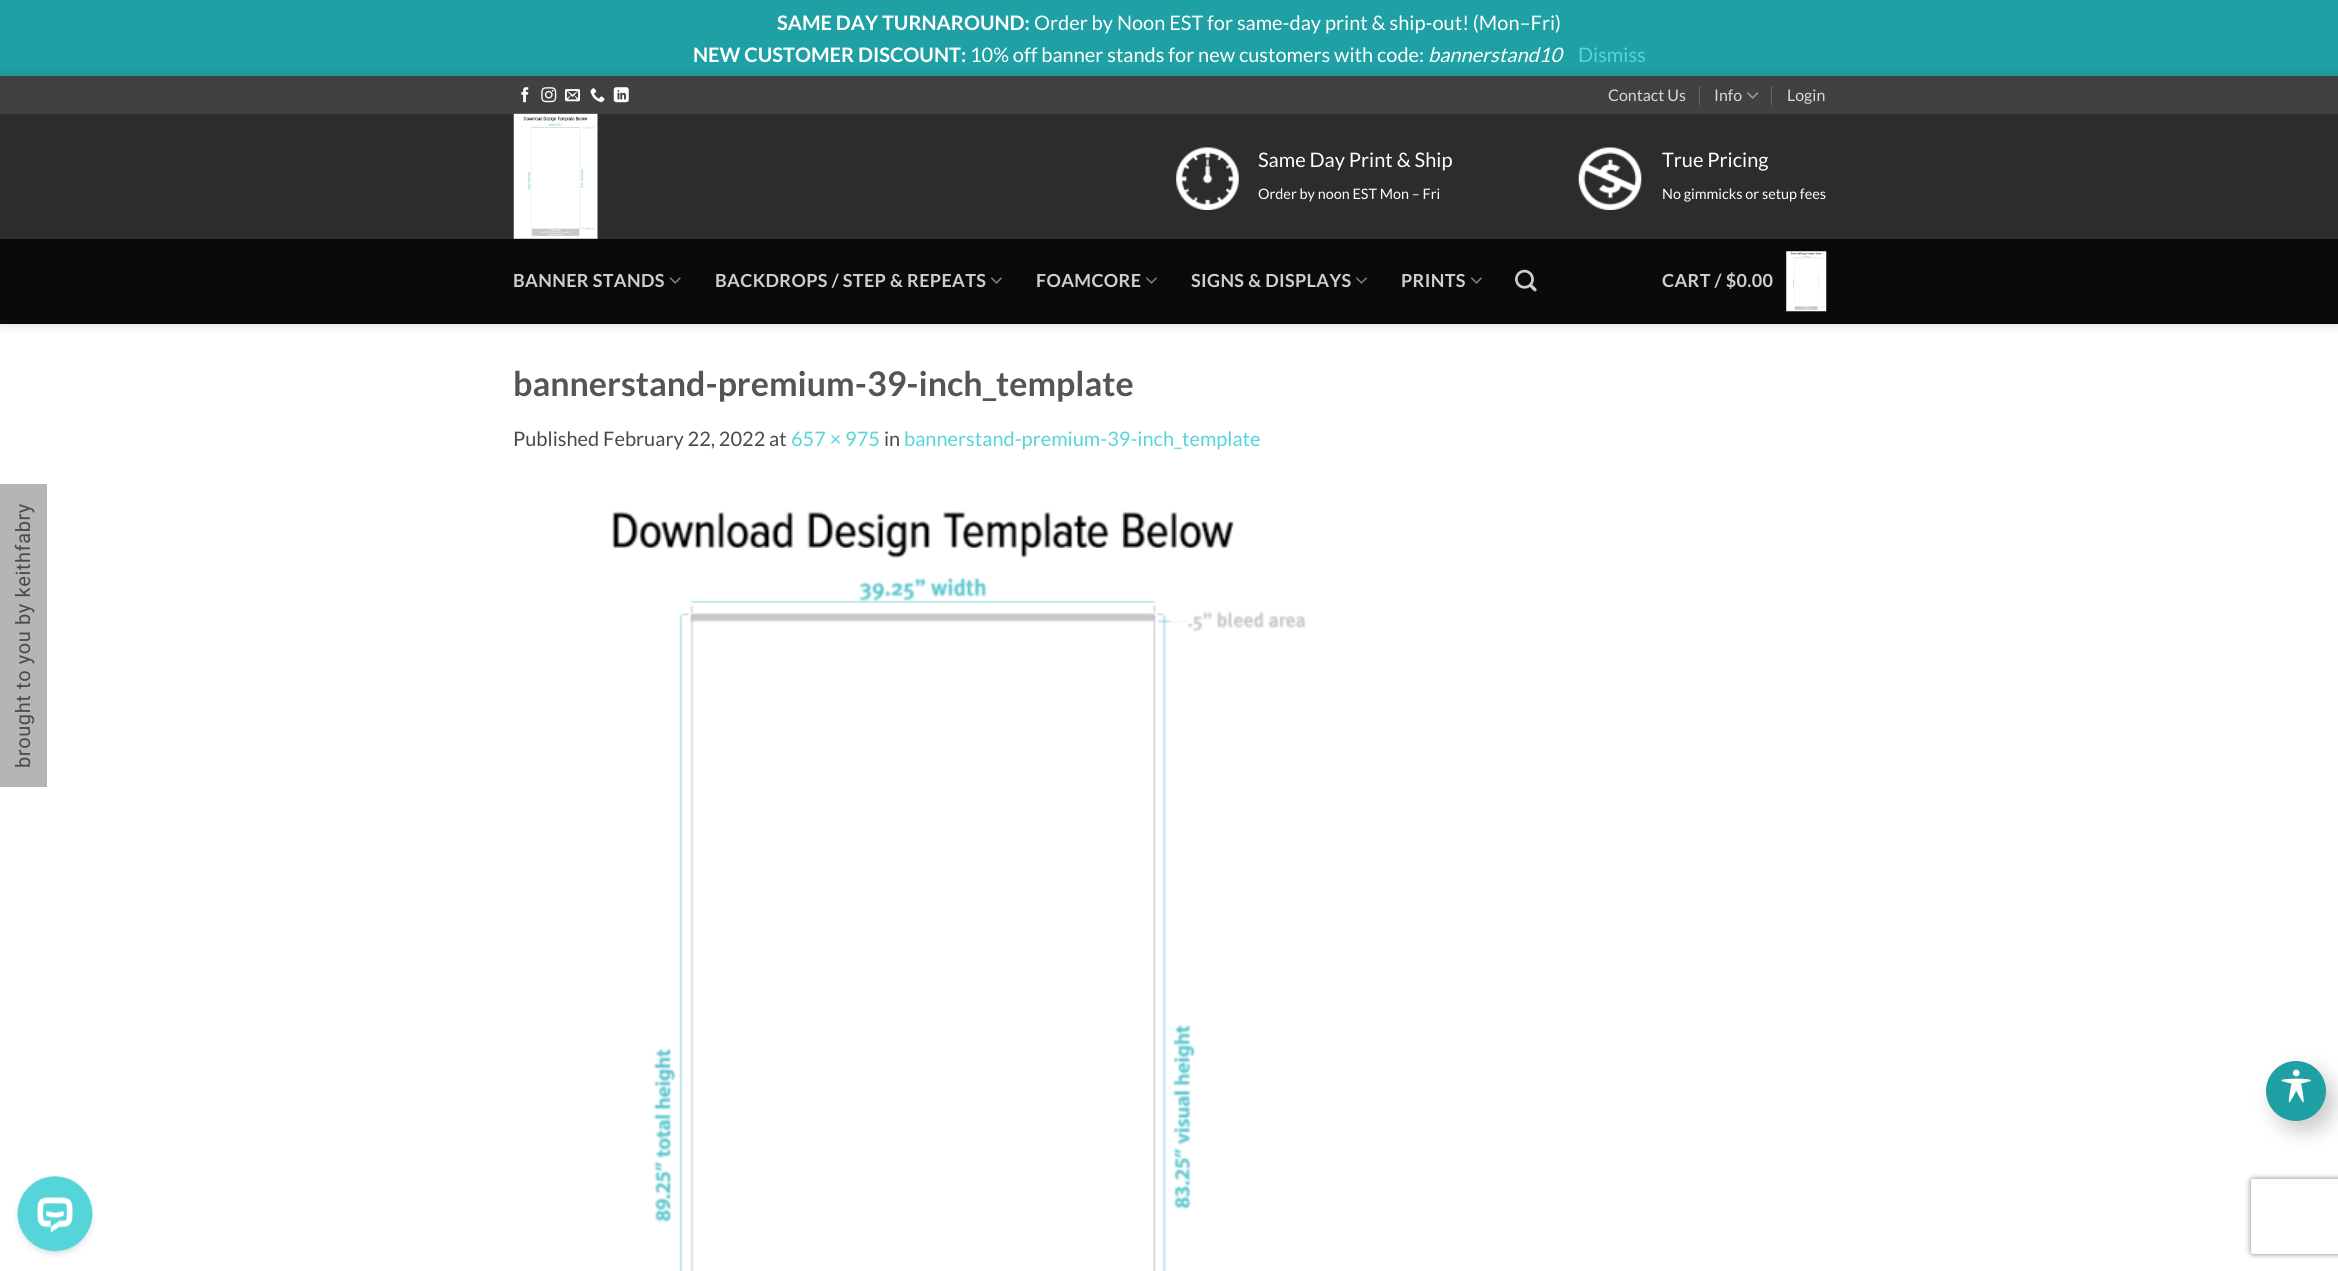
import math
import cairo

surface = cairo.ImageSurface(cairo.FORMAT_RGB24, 2338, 1271)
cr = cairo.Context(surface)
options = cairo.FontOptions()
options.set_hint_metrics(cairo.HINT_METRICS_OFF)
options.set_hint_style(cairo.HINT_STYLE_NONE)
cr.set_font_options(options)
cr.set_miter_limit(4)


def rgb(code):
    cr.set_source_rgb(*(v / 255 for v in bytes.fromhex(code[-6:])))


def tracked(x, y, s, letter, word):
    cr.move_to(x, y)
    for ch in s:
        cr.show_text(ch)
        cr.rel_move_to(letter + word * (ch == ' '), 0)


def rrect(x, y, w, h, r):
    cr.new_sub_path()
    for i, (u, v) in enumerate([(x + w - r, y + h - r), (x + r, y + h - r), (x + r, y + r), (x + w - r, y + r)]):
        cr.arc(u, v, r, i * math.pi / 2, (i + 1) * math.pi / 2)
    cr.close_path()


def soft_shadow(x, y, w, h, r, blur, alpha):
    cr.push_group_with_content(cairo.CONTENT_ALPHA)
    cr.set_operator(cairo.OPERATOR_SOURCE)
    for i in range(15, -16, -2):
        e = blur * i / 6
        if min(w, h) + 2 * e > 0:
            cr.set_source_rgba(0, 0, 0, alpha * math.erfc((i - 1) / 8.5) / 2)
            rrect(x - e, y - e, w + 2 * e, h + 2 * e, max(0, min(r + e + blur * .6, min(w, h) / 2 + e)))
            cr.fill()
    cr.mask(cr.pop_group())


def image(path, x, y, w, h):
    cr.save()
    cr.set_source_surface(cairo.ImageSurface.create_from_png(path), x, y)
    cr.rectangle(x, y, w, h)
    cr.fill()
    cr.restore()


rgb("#1fa0a4")
cr.paint()
rgb("#ffffff")
cr.rectangle(0, 76, 2338, 1195)
cr.fill()
cr.save()
cr.set_fill_rule(cairo.FILL_RULE_EVEN_ODD)
cr.new_path()
cr.move_to(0, 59)
cr.line_to(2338, 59)
cr.line_to(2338, 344)
cr.line_to(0, 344)
cr.close_path()
cr.move_to(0, 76)
cr.line_to(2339, 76)
cr.line_to(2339, 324)
cr.line_to(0, 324)
cr.close_path()
cr.clip()
rgb("#000000")
soft_shadow(1, 78, 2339, 247, 0, 6, 0.15)
cr.restore()
cr.set_source_rgba(0.086, 0.086, 0.086, 0.9)
cr.rectangle(0, 76, 2338, 163)
cr.fill()
image("img/7.png", 513, 113, 85, 126)
cr.set_source_rgba(0.369, 0.369, 0.369, 0.42)
cr.rectangle(0, 76, 2338, 38)
cr.fill()
image("img/1.png", 521, 87, 8, 16)
image("img/2.png", 541, 87, 16, 16)
image("img/3.png", 565, 89, 15, 13)
image("img/4.png", 590, 88, 15, 15)
image("img/5.png", 613, 87, 16, 16)
rgb("#686868")
cr.rectangle(1699, 86, 1, 19)
cr.fill()
image("img/6.png", 1747, 92, 12, 7)
cr.rectangle(1771, 86, 1, 19)
cr.fill()
image("img/8.png", 1176, 147, 63, 63)
image("img/9.png", 1578, 147, 64, 63)
rgb("#0a0a0a")
cr.rectangle(0, 239, 2338, 85)
cr.fill()
image("img/10.png", 669, 277, 12, 7)
image("img/11.png", 991, 277, 11, 7)
image("img/11.png", 1146, 277, 11, 7)
image("img/11.png", 1356, 277, 11, 7)
image("img/11.png", 1471, 277, 11, 7)
image("img/12.png", 1515, 269, 22, 23)
image("img/13.png", 1786, 251, 41, 61)
image("img/14.png", 612, 511, 694, 760)
rgb("#b5b5b5")
cr.rectangle(0, 484, 47, 303)
cr.fill()
rgb("#000000")
soft_shadow(2274, 1071, 60, 60, 30, 10, 0.2)
rgb("#1fa0a4")
cr.arc(2296, 1091, 30, 0, 2 * math.pi)
cr.fill()
image("img/15.png", 2281, 1069, 30, 34)
image("img/16.png", 15, 1176, 80, 81)
cr.save()
cr.set_fill_rule(cairo.FILL_RULE_EVEN_ODD)
cr.new_path()
cr.move_to(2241, 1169)
cr.line_to(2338, 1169)
cr.line_to(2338, 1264)
cr.line_to(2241, 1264)
cr.close_path()
cr.move_to(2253.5, 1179)
cr.line_to(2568.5, 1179)
cr.curve_to(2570, 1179, 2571, 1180, 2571, 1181.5)
cr.line_to(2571, 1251.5)
cr.curve_to(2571, 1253, 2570, 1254, 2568.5, 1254)
cr.line_to(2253.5, 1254)
cr.curve_to(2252, 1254, 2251, 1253, 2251, 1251.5)
cr.line_to(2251, 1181.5)
cr.curve_to(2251, 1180, 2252, 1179, 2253.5, 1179)
cr.close_path()
cr.clip()
rgb("#808080")
soft_shadow(2251, 1179, 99, 75, 2.5, 3, 1)
cr.restore()
cr.select_font_face("Lato", cairo.FONT_SLANT_NORMAL, cairo.FONT_WEIGHT_BOLD)
cr.set_font_size(20)
rgb("#ffffff")
cr.move_to(777, 30)
cr.show_text("SAME DAY TURNAROUND:")
cr.select_font_face("Lato")
cr.move_to(1034, 30)
cr.show_text("Order by Noon EST for same-day print & ship-out! (Mon–Fri)")
cr.select_font_face("Lato", cairo.FONT_SLANT_NORMAL, cairo.FONT_WEIGHT_BOLD)
cr.move_to(693, 62)
cr.show_text("NEW CUSTOMER DISCOUNT:")
cr.select_font_face("Lato")
cr.move_to(970, 62)
cr.show_text("10% off banner stands for new customers with code:")
cr.select_font_face("Lato", cairo.FONT_SLANT_ITALIC)
cr.move_to(1428, 62)
cr.show_text("bannerstand10")
cr.select_font_face("Lato")
rgb("#55d5d9")
cr.move_to(1578, 62)
cr.show_text("Dismiss")
cr.set_font_size(16)
rgb("#d9d9d9")
for x, y, s in [
    (1608, 101, "Contact Us"),
    (1714, 101, "Info"),
    (1787, 101, "Login"),
]:
    cr.move_to(x, y)
    cr.show_text(s)
cr.set_font_size(20)
rgb("#ffffff")
cr.move_to(1258, 167)
cr.show_text("Same Day Print & Ship")
cr.set_font_size(14.4)
cr.move_to(1258, 199)
cr.show_text("Order by noon EST Mon – Fri")
cr.set_font_size(20)
cr.move_to(1662, 167)
cr.show_text("True Pricing")
cr.set_font_size(14.4)
cr.move_to(1662, 199)
cr.show_text("No gimmicks or setup fees")
cr.select_font_face("Lato", cairo.FONT_SLANT_NORMAL, cairo.FONT_WEIGHT_BOLD)
cr.set_font_size(18)
rgb("#cecece")
for x, y, s in [
    (513, 287, "BANNER STANDS"),
    (715, 287, "BACKDROPS / STEP & REPEATS"),
    (1036, 287, "FOAMCORE"),
    (1191, 287, "SIGNS & DISPLAYS"),
    (1401, 287, "PRINTS"),
    (1662, 287, "CART / $0.00"),
]:
    tracked(x, y, s, 0.35, 0)
cr.set_font_size(34)
rgb("#555555")
cr.move_to(513, 396)
cr.show_text("bannerstand-premium-39-inch_template")
cr.select_font_face("Lato")
cr.set_font_size(20)
rgb("#4a4a4a")
cr.move_to(513, 446)
cr.show_text("Published February 22, 2022 at")
rgb("#55d5d9")
cr.move_to(791, 446)
cr.show_text("657 × 975")
rgb("#4a4a4a")
cr.move_to(884, 446)
cr.show_text("in")
rgb("#55d5d9")
cr.move_to(904, 446)
cr.show_text("bannerstand-premium-39-inch_template")
cr.select_font_face("Roboto")
rgb("#4a4a4a")
cr.save()
cr.translate(30, 768)
cr.rotate(-90 * math.pi / 180)
tracked(0, 0, "brought to you by keithfabry", 0.6, 0)
cr.restore()
surface.write_to_png("page.png")
